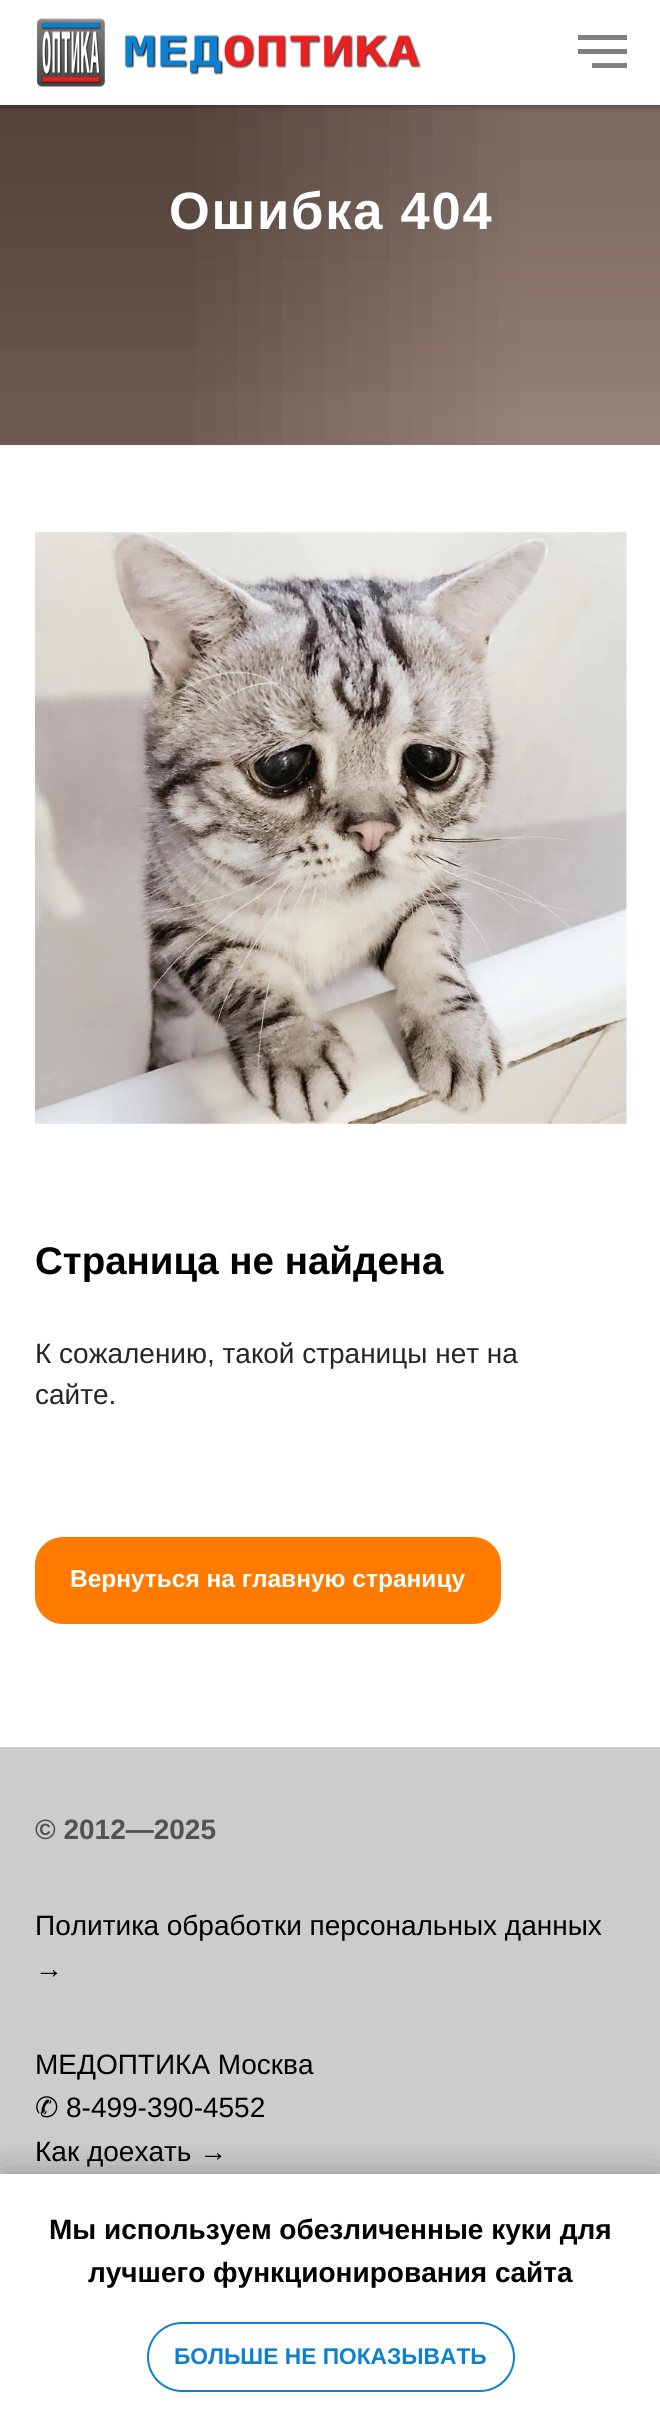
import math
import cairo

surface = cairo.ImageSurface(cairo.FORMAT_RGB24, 660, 2427)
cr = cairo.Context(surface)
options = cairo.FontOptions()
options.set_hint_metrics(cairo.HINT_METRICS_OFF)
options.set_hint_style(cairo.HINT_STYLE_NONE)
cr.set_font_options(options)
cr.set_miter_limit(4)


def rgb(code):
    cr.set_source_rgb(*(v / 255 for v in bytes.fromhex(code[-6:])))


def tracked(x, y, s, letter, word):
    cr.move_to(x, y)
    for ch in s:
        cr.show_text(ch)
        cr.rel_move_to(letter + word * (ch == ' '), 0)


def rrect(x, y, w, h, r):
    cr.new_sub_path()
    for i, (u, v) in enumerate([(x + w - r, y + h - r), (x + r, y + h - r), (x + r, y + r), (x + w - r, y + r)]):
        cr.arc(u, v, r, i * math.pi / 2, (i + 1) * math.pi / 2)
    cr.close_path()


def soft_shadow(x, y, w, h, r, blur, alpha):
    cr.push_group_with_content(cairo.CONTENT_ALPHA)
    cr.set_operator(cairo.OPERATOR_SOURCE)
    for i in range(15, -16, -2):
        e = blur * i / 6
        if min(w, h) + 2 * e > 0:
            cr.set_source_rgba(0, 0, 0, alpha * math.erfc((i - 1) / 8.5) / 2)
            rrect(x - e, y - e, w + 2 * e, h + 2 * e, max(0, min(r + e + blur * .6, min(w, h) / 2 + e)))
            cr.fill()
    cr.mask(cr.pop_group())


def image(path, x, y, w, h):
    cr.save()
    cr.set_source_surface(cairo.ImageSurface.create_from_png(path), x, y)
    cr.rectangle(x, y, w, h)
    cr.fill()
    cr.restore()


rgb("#ffffff")
cr.paint()
image("img/2.png", 0, 105, 660, 340)
gradient = cairo.LinearGradient(331, -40, 331, 445)
gradient.add_color_stop_rgba(0, 0, 0, 0, 0.2)
gradient.add_color_stop_rgba(1, 0, 0, 0, 0)
cr.set_source(gradient)
cr.rectangle(0, 105, 660, 288)
cr.fill()
rgb("#000000")
soft_shadow(0, 2, 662, 105, 0, 2.5, 0.3)
rgb("#ffffff")
cr.rectangle(0, 0, 660, 105)
cr.fill()
image("img/1.png", 37, 18, 384, 69)
for x, y, w, h, color in [
    (578, 35, 49, 5, "#808080"),
    (578, 49, 49, 5, "#808080"),
    (592, 63, 35, 5, "#808080"),
]:
    rgb(color)
    cr.rectangle(x, y, w, h)
    cr.fill()
image("img/3.png", 35, 532, 592, 592)
rgb("#ff7b00")
rrect(35, 1537, 466, 87, 28)
cr.fill()
rgb("#cccccc")
cr.rectangle(0, 1747, 660, 427)
cr.fill()
rgb("#000000")
soft_shadow(0, 2174, 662, 253, 0, 17.5, 0.3)
rgb("#ffffff")
cr.rectangle(0, 2174, 660, 253)
cr.fill()
rrect(148, 2323, 366, 68, 34)
rgb("#0d80d0")
cr.stroke()
cr.select_font_face("Liberation Sans", cairo.FONT_SLANT_NORMAL, cairo.FONT_WEIGHT_BOLD)
cr.set_font_size(52.5)
rgb("#ffffff")
tracked(169, 229, "Ошибка 404", 1.75, 0)
cr.set_font_size(38.5)
rgb("#000000")
cr.move_to(35, 1274)
cr.show_text("Страница не найдена")
cr.select_font_face("Liberation Sans")
cr.set_font_size(28)
rgb("#262626")
cr.move_to(35, 1363)
cr.show_text("К сожалению, такой страницы нет на")
cr.move_to(35, 1404)
cr.show_text("сайте.")
cr.select_font_face("Liberation Sans", cairo.FONT_SLANT_NORMAL, cairo.FONT_WEIGHT_BOLD)
cr.set_font_size(24.5)
rgb("#ffffff")
cr.move_to(70, 1587)
cr.show_text("Вернуться на главную страницу")
cr.set_font_size(28)
rgb("#525252")
cr.move_to(35, 1839)
cr.show_text("© 2012—2025")
cr.select_font_face("Liberation Sans")
rgb("#000000")
for x, y, s in [
    (35, 1935, "Политика обработки персональных данных"),
    (35, 1978, "→"),
    (35, 2074, "МЕДОПТИКА Москва"),
]:
    cr.move_to(x, y)
    cr.show_text(s)
cr.select_font_face("DejaVu Sans")
cr.move_to(35, 2117)
cr.show_text("✆")
cr.select_font_face("Liberation Sans")
cr.move_to(66, 2117)
cr.show_text("8-499-390-4552")
cr.move_to(35, 2161)
cr.show_text("Как доехать →")
cr.select_font_face("Liberation Sans", cairo.FONT_SLANT_NORMAL, cairo.FONT_WEIGHT_BOLD)
cr.move_to(49, 2239)
cr.show_text("Мы используем обезличенные куки для")
cr.move_to(88, 2282)
cr.show_text("лучшего функционирования сайта")
cr.set_font_size(22.75)
rgb("#0d80d0")
cr.move_to(174, 2364)
cr.show_text("БОЛЬШЕ НЕ ПОКАЗЫВАТЬ")
surface.write_to_png("page.png")
